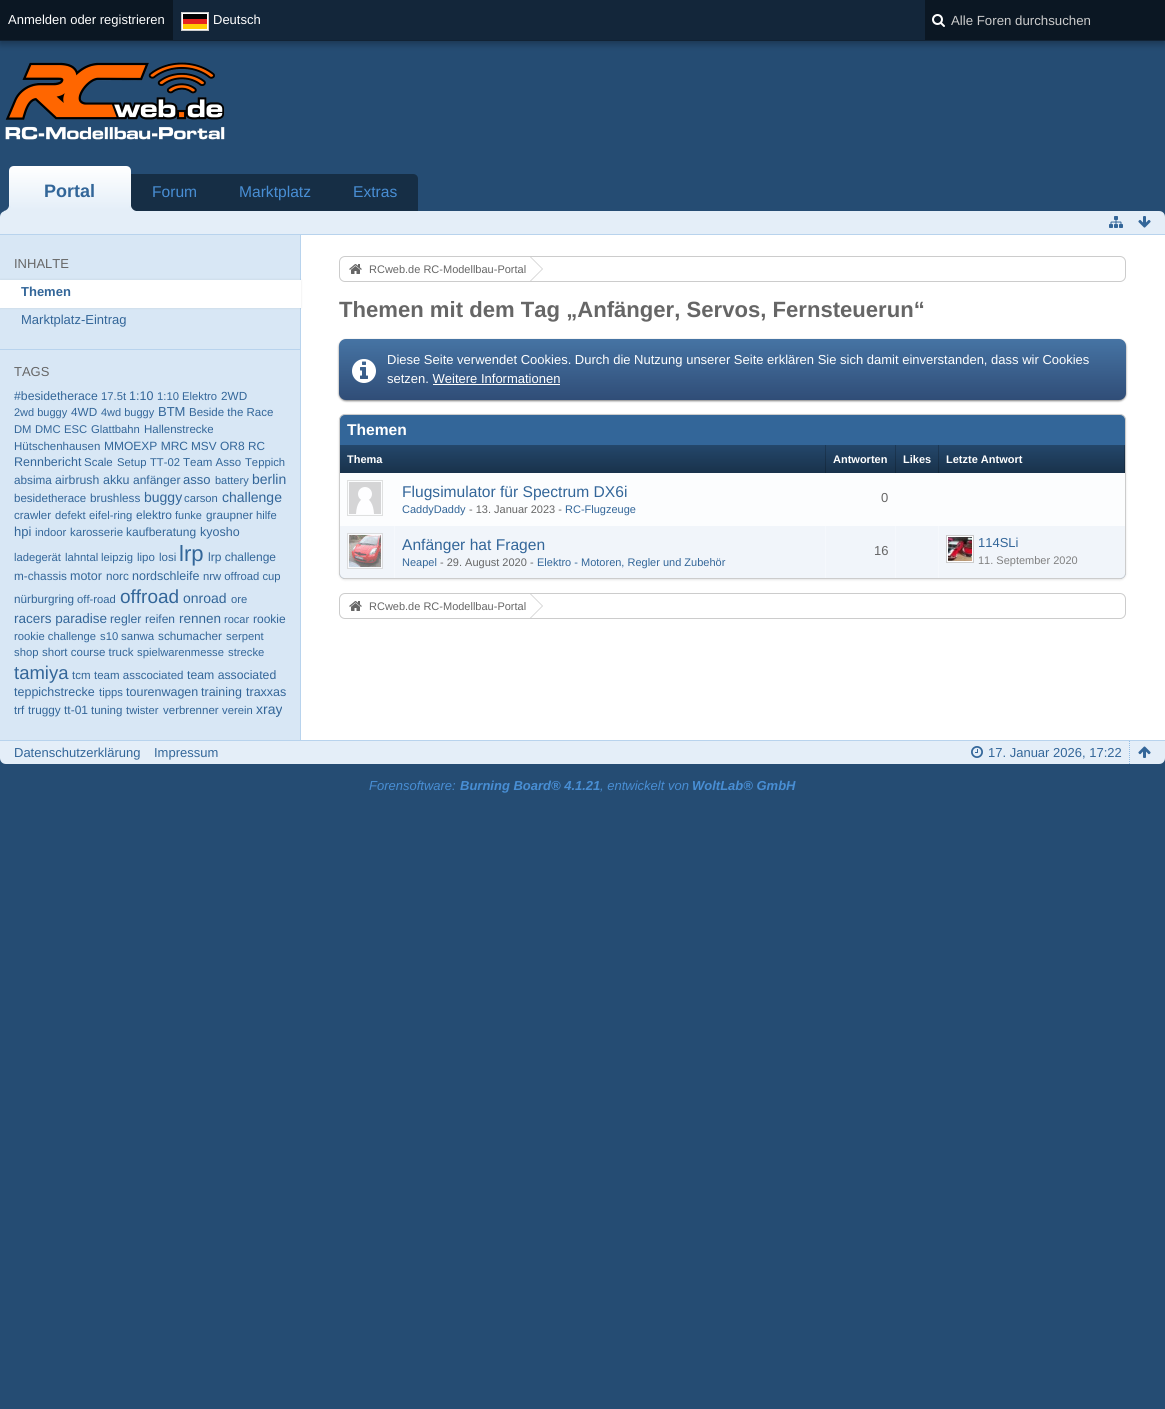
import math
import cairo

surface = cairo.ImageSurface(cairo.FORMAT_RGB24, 1165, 1409)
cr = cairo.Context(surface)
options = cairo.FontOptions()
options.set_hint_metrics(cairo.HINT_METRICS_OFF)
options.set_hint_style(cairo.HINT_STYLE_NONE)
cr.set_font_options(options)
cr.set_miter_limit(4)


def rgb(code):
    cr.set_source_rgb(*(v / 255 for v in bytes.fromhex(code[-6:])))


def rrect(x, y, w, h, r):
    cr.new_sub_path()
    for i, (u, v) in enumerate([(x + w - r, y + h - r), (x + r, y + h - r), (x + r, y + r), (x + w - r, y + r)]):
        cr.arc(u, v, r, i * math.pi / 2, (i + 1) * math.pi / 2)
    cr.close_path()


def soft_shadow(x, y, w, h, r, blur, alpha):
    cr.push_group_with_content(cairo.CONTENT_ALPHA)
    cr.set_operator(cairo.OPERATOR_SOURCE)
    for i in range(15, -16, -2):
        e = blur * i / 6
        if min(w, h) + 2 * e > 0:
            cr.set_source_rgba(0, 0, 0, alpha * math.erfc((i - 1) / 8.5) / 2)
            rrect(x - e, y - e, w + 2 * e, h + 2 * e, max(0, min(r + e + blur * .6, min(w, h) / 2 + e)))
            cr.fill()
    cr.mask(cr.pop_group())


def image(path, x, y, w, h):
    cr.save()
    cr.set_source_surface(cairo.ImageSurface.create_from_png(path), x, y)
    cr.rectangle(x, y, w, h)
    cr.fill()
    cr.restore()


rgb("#254c73")
cr.paint()
rgb("#000000")
soft_shadow(0, 3, 1165, 41, 0, 3.5, 0.3)
for x, y, w, h, color in [
    (173, 0, 752, 40, "#13263a"),
    (0, 40, 1165, 1, "#112234"),
    (0, 0, 173, 40, "#0b1723"),
]:
    rgb(color)
    cr.rectangle(x, y, w, h)
    cr.fill()
rgb("#ffffff")
cr.rectangle(181.5, 12.5, 27, 18)
cr.fill_preserve()
rgb("#cccccc")
cr.set_line_width(1)
cr.stroke()
for x, y, w, h, color in [
    (183, 14, 24, 5, "#010202"),
    (183, 19, 24, 5, "#e52420"),
    (183, 24, 24, 5, "#ffcc04"),
    (925, 0, 240, 40, "#0b1723"),
]:
    rgb(color)
    cr.rectangle(x, y, w, h)
    cr.fill()
image("img/1.png", 932, 14, 13, 13)
image("img/2.png", 5, 62, 220, 78)
rgb("#162e45")
cr.new_path()
cr.move_to(14, 174)
cr.line_to(413, 174)
cr.curve_to(416, 174, 418, 176, 418, 179)
cr.line_to(418, 211)
cr.line_to(9, 211)
cr.line_to(9, 179)
cr.curve_to(9, 176, 11, 174, 14, 174)
cr.close_path()
cr.fill()
gradient = cairo.LinearGradient(70, 166, 70, 211)
gradient.add_color_stop_rgba(0, 1, 1, 1, 1)
gradient.add_color_stop_rgba(1, 0.894, 0.933, 0.973, 1)
cr.set_source(gradient)
cr.new_path()
cr.move_to(14, 166)
cr.line_to(126, 166)
cr.curve_to(129, 166, 131, 168, 131, 171)
cr.line_to(131, 211)
cr.line_to(9, 211)
cr.line_to(9, 171)
cr.curve_to(9, 168, 11, 166, 14, 166)
cr.close_path()
cr.fill()
rgb("#e4eef8")
cr.new_path()
cr.move_to(6, 211)
cr.line_to(1159, 211)
cr.curve_to(1162.5, 211, 1165, 213.5, 1165, 217)
cr.line_to(1165, 235)
cr.line_to(0, 235)
cr.line_to(0, 217)
cr.curve_to(0, 213.5, 2.5, 211, 6, 211)
cr.close_path()
cr.fill()
cr.new_path()
cr.move_to(4, 211)
cr.line_to(4, 213)
cr.curve_to(8.5, 213, 11, 210.5, 11, 206)
cr.line_to(9, 206)
cr.curve_to(8.5, 208.5, 6.5, 210.5, 4, 211)
cr.close_path()
cr.fill()
cr.new_path()
cr.move_to(129, 206)
cr.curve_to(129, 210.5, 131.5, 213, 136, 213)
cr.line_to(136, 211)
cr.curve_to(133.5, 210.5, 131.5, 208.5, 131, 206)
cr.close_path()
cr.fill()
rgb("#b8d3ed")
cr.rectangle(0, 234, 1165, 1)
cr.fill()
image("img/3.png", 1109, 216, 14, 12)
image("img/4.png", 1138, 216, 13, 12)
for x, y, w, h, color in [
    (301, 235, 864, 505, "#ffffff"),
    (0, 235, 300, 505, "#d8e7f5"),
    (300, 235, 1, 505, "#b8d3ed"),
    (0, 349, 301, 1, "#b8d3ed"),
]:
    rgb(color)
    cr.rectangle(x, y, w, h)
    cr.fill()
rgb("#000000")
soft_shadow(0, 280, 301, 28, 0, 1, 0.1)
rgb("#ffffff")
cr.rectangle(0, 280, 301, 28)
cr.fill()
rrect(339.5, 256.5, 786, 25, 5.5)
rgb("#cccccc")
cr.stroke()
image("img/5.png", 349, 264, 13, 10)
cr.new_path()
cr.move_to(531, 257)
cr.line_to(543, 269)
cr.line_to(531, 281)
cr.line_to(528, 281)
cr.line_to(528, 257)
cr.close_path()
cr.fill()
rgb("#ffffff")
cr.new_path()
cr.move_to(530, 257)
cr.line_to(542, 269)
cr.line_to(530, 281)
cr.line_to(527, 281)
cr.line_to(527, 257)
cr.close_path()
cr.fill()
rgb("#000000")
soft_shadow(339, 340, 787, 61, 7, 1, 0.5)
gradient = cairo.LinearGradient(733, 339, 733, 400)
gradient.add_color_stop_rgba(0, 0.275, 0.455, 0.643, 1)
gradient.add_color_stop_rgba(1, 0.188, 0.302, 0.467, 1)
cr.set_source(gradient)
rrect(339, 339, 787, 61, 7)
cr.fill()
image("img/6.png", 352, 359, 24, 24)
rgb("#ffffff")
cr.rectangle(433, 384, 127, 1)
cr.fill()
rgb("#000000")
soft_shadow(339, 415, 787, 165, 6, 1, 0.1)
rgb("#336699")
rrect(339.5, 414.5, 786, 164, 5.5)
cr.fill_preserve()
rgb("#cccccc")
cr.stroke()
gradient = cairo.LinearGradient(583, 445, 583, 473)
gradient.add_color_stop_rgba(0, 0.141, 0.278, 0.42, 1)
gradient.add_color_stop_rgba(1, 0.098, 0.196, 0.294, 1)
cr.set_source(gradient)
cr.rectangle(340, 445, 485, 28)
cr.fill()
gradient = cairo.LinearGradient(583, 445, 583, 473)
gradient.add_color_stop_rgba(0, 0.114, 0.224, 0.337, 1)
gradient.add_color_stop_rgba(1, 0.078, 0.157, 0.235, 1)
cr.set_source(gradient)
cr.rectangle(825, 445, 1, 28)
cr.fill()
gradient = cairo.LinearGradient(861, 445, 861, 473)
gradient.add_color_stop_rgba(0, 0.141, 0.278, 0.42, 1)
gradient.add_color_stop_rgba(1, 0.098, 0.196, 0.294, 1)
cr.set_source(gradient)
cr.rectangle(826, 445, 69, 28)
cr.fill()
gradient = cairo.LinearGradient(861, 445, 861, 473)
gradient.add_color_stop_rgba(0, 0.114, 0.224, 0.337, 1)
gradient.add_color_stop_rgba(1, 0.078, 0.157, 0.235, 1)
cr.set_source(gradient)
cr.rectangle(895, 445, 1, 28)
cr.fill()
gradient = cairo.LinearGradient(917, 445, 917, 473)
gradient.add_color_stop_rgba(0, 0.141, 0.278, 0.42, 1)
gradient.add_color_stop_rgba(1, 0.098, 0.196, 0.294, 1)
cr.set_source(gradient)
cr.rectangle(896, 445, 42, 28)
cr.fill()
gradient = cairo.LinearGradient(917, 445, 917, 473)
gradient.add_color_stop_rgba(0, 0.114, 0.224, 0.337, 1)
gradient.add_color_stop_rgba(1, 0.078, 0.157, 0.235, 1)
cr.set_source(gradient)
cr.rectangle(938, 445, 1, 28)
cr.fill()
gradient = cairo.LinearGradient(1032, 445, 1032, 473)
gradient.add_color_stop_rgba(0, 0.141, 0.278, 0.42, 1)
gradient.add_color_stop_rgba(1, 0.098, 0.196, 0.294, 1)
cr.set_source(gradient)
cr.rectangle(939, 445, 185, 28)
cr.fill()
gradient = cairo.LinearGradient(1032, 445, 1032, 473)
gradient.add_color_stop_rgba(0, 0.114, 0.224, 0.337, 1)
gradient.add_color_stop_rgba(1, 0.078, 0.157, 0.235, 1)
cr.set_source(gradient)
cr.rectangle(1124, 445, 1, 28)
cr.fill()
rgb("#fcfdfe")
cr.rectangle(340, 473, 785, 53)
cr.fill()
cr.rectangle(347.5, 480.5, 35, 35)
rgb("#dfe0e0")
cr.stroke()
rgb("#d5d5d6")
cr.rectangle(349, 482, 32, 32)
cr.fill()
rgb("#fefeff")
cr.new_path()
cr.move_to(356, 514)
cr.curve_to(357, 493, 373, 493, 374, 514)
cr.fill()
cr.arc(365, 494, 7, 0, 2 * math.pi)
cr.fill()
rgb("#f1f5fa")
cr.new_path()
cr.move_to(340, 526)
cr.line_to(395, 526)
cr.line_to(395, 578)
cr.line_to(344, 578)
cr.curve_to(342, 578, 340, 576, 340, 574)
cr.close_path()
cr.fill()
rgb("#f5f8fc")
cr.rectangle(394, 526, 1, 52)
cr.fill()
rgb("#f9fbfd")
cr.rectangle(347.5, 533.5, 35, 35)
cr.fill_preserve()
rgb("#dbdcde")
cr.stroke()
image("img/7.png", 349, 535, 32, 32)
for x, y, w, h, color in [
    (395, 526, 430, 52, "#f1f5fa"),
    (825, 526, 1, 52, "#f5f8fc"),
    (826, 526, 69, 52, "#f1f5fa"),
    (895, 526, 1, 52, "#f5f8fc"),
    (896, 526, 42, 52, "#f1f5fa"),
    (938, 526, 1, 52, "#f5f8fc"),
]:
    rgb(color)
    cr.rectangle(x, y, w, h)
    cr.fill()
rgb("#f1f5fa")
cr.new_path()
cr.move_to(939, 526)
cr.line_to(1125, 526)
cr.line_to(1125, 574)
cr.curve_to(1125, 576, 1123, 578, 1121, 578)
cr.line_to(939, 578)
cr.close_path()
cr.fill()
rgb("#ffffff")
cr.rectangle(946.5, 535.5, 27, 27)
cr.fill_preserve()
rgb("#cccccc")
cr.stroke()
image("img/8.png", 948, 537, 24, 24)
rrect(339.5, 593.5, 786, 25, 5.5)
cr.stroke()
image("img/5.png", 349, 601, 13, 10)
cr.new_path()
cr.move_to(531, 594)
cr.line_to(543, 606)
cr.line_to(531, 618)
cr.line_to(528, 618)
cr.line_to(528, 594)
cr.close_path()
cr.fill()
rgb("#ffffff")
cr.new_path()
cr.move_to(530, 594)
cr.line_to(542, 606)
cr.line_to(530, 618)
cr.line_to(527, 618)
cr.line_to(527, 594)
cr.close_path()
cr.fill()
rgb("#e4eef8")
cr.new_path()
cr.move_to(0, 740)
cr.line_to(1165, 740)
cr.line_to(1165, 758)
cr.curve_to(1165, 761.5, 1162.5, 764, 1159, 764)
cr.line_to(6, 764)
cr.curve_to(2.5, 764, 0, 761.5, 0, 758)
cr.close_path()
cr.fill()
rgb("#b8d3ed")
cr.rectangle(0, 740, 1165, 1)
cr.fill()
cr.new_path()
cr.move_to(1129.5, 741)
cr.line_to(1129.5, 764)
rgb("#93bde3")
cr.set_dash([1, 1])
cr.stroke()
image("img/9.png", 971, 746, 12, 12)
image("img/10.png", 1138, 746, 13, 12)
cr.select_font_face("Liberation Sans")
cr.set_font_size(13)
rgb("#ffffff")
cr.move_to(8, 24)
cr.show_text("Anmelden oder registrieren")
cr.move_to(213, 24)
cr.show_text("Deutsch")
cr.set_font_size(13.25)
rgb("#cccccc")
cr.move_to(951, 25)
cr.show_text("Alle Foren durchsuchen")
cr.select_font_face("Liberation Sans", cairo.FONT_SLANT_NORMAL, cairo.FONT_WEIGHT_BOLD)
cr.set_font_size(18)
rgb("#336699")
cr.move_to(44, 197)
cr.show_text("Portal")
cr.select_font_face("Liberation Sans")
cr.set_font_size(15.6)
rgb("#488ed4")
for x, y, s in [
    (152, 197, "Forum"),
    (239, 197, "Marktplatz"),
    (353, 197, "Extras"),
]:
    cr.move_to(x, y)
    cr.show_text(s)
cr.set_font_size(13)
rgb("#666666")
cr.move_to(14, 268)
cr.show_text("INHALTE")
cr.select_font_face("Liberation Sans", cairo.FONT_SLANT_NORMAL, cairo.FONT_WEIGHT_BOLD)
rgb("#336699")
cr.move_to(21, 296)
cr.show_text("Themen")
cr.select_font_face("Liberation Sans")
cr.move_to(21, 324)
cr.show_text("Marktplatz-Eintrag")
rgb("#666666")
cr.move_to(14, 376)
cr.show_text("TAGS")
cr.set_font_size(12.25)
rgb("#336699")
cr.move_to(14, 400)
cr.show_text("#besidetherace")
cr.set_font_size(11.25)
cr.move_to(101, 400)
cr.show_text("17.5t")
cr.set_font_size(12.5)
cr.move_to(129, 400)
cr.show_text("1:10")
cr.set_font_size(11.25)
cr.move_to(157, 400)
cr.show_text("1:10 Elektro")
cr.set_font_size(11.75)
cr.move_to(221, 400)
cr.show_text("2WD")
cr.set_font_size(11)
cr.move_to(14, 416)
cr.show_text("2wd buggy")
cr.set_font_size(11.75)
cr.move_to(71, 416)
cr.show_text("4WD")
cr.set_font_size(11)
cr.move_to(101, 416)
cr.show_text("4wd buggy")
cr.set_font_size(13)
cr.move_to(158, 416)
cr.show_text("BTM")
cr.set_font_size(11.5)
cr.move_to(189, 416)
cr.show_text("Beside the Race")
cr.set_font_size(11.25)
for x, y, s in [
    (14, 433, "DM"),
    (35, 433, "DMC"),
    (64, 433, "ESC"),
    (91, 433, "Glattbahn"),
]:
    cr.move_to(x, y)
    cr.show_text(s)
cr.set_font_size(11.5)
cr.move_to(144, 433)
cr.show_text("Hallenstrecke")
cr.move_to(14, 450)
cr.show_text("Hütschenhausen")
cr.set_font_size(12)
cr.move_to(104, 450)
cr.show_text("MMOEXP MRC")
cr.set_font_size(11.75)
cr.move_to(191, 450)
cr.show_text("MSV")
cr.set_font_size(12)
cr.move_to(220, 450)
cr.show_text("OR8")
cr.set_font_size(11.75)
cr.move_to(248, 450)
cr.show_text("RC")
cr.set_font_size(12.5)
cr.move_to(14, 466)
cr.show_text("Rennbericht")
cr.set_font_size(11.5)
cr.move_to(84, 466)
cr.show_text("Scale")
cr.set_font_size(11.25)
cr.move_to(117, 466)
cr.show_text("Setup")
cr.move_to(150, 466)
cr.show_text("TT-02")
cr.set_font_size(11.5)
cr.move_to(183, 466)
cr.show_text("Team Asso")
cr.set_font_size(11.25)
cr.move_to(245, 466)
cr.show_text("Teppich")
cr.set_font_size(11.75)
cr.move_to(14, 484)
cr.show_text("absima")
cr.set_font_size(12.25)
cr.move_to(55, 484)
cr.show_text("airbrush")
cr.set_font_size(12.5)
cr.move_to(103, 484)
cr.show_text("akku")
cr.set_font_size(12)
cr.move_to(133, 484)
cr.show_text("anfänger")
cr.set_font_size(13)
cr.move_to(183, 484)
cr.show_text("asso")
cr.set_font_size(11)
cr.move_to(215, 484)
cr.show_text("battery")
cr.set_font_size(14)
cr.move_to(252, 484)
cr.show_text("berlin")
cr.set_font_size(11.5)
cr.move_to(14, 502)
cr.show_text("besidetherace")
cr.set_font_size(11.75)
cr.move_to(90, 502)
cr.show_text("brushless")
cr.set_font_size(14)
cr.move_to(144, 502)
cr.show_text("buggy")
cr.set_font_size(11.25)
cr.move_to(184, 502)
cr.show_text("carson")
cr.set_font_size(14)
cr.move_to(222, 502)
cr.show_text("challenge")
cr.set_font_size(11.5)
cr.move_to(14, 519)
cr.show_text("crawler")
cr.set_font_size(11.25)
cr.move_to(55, 519)
cr.show_text("defekt")
cr.move_to(89, 519)
cr.show_text("eifel-ring")
cr.set_font_size(12)
cr.move_to(136, 519)
cr.show_text("elektro")
cr.set_font_size(11)
cr.move_to(175, 519)
cr.show_text("funke")
cr.set_font_size(11.75)
cr.move_to(206, 519)
cr.show_text("graupner")
cr.set_font_size(11.25)
cr.move_to(256, 519)
cr.show_text("hilfe")
cr.set_font_size(13)
cr.move_to(14, 536)
cr.show_text("hpi")
cr.set_font_size(11.25)
cr.move_to(35, 536)
cr.show_text("indoor")
cr.set_font_size(11.5)
cr.move_to(70, 536)
cr.show_text("karosserie")
cr.set_font_size(12)
cr.move_to(126, 536)
cr.show_text("kaufberatung")
cr.set_font_size(12.5)
cr.move_to(200, 536)
cr.show_text("kyosho")
cr.set_font_size(11.25)
for x, y, s in [
    (14, 561, "ladegerät"),
    (65, 561, "lahntal"),
    (101, 561, "leipzig"),
]:
    cr.move_to(x, y)
    cr.show_text(s)
cr.set_font_size(11.5)
cr.move_to(137, 561)
cr.show_text("lipo")
cr.move_to(159, 561)
cr.show_text("losi")
cr.set_font_size(22.1)
cr.move_to(179, 561)
cr.show_text("lrp")
cr.set_font_size(12)
cr.move_to(208, 561)
cr.show_text("lrp challenge")
cr.set_font_size(11.75)
cr.move_to(14, 580)
cr.show_text("m-chassis")
cr.set_font_size(12.5)
cr.move_to(70, 580)
cr.show_text("motor")
cr.set_font_size(11.75)
cr.move_to(106, 580)
cr.show_text("norc")
cr.set_font_size(12.5)
cr.move_to(132, 580)
cr.show_text("nordschleife")
cr.set_font_size(11.25)
cr.move_to(203, 580)
cr.show_text("nrw offroad cup")
cr.set_font_size(11.75)
cr.move_to(14, 603)
cr.show_text("nürburgring")
cr.set_font_size(11.25)
cr.move_to(77, 603)
cr.show_text("off-road")
cr.set_font_size(19)
cr.move_to(120, 603)
cr.show_text("offroad")
cr.set_font_size(14)
cr.move_to(183, 603)
cr.show_text("onroad")
cr.set_font_size(11.25)
cr.move_to(231, 603)
cr.show_text("ore")
cr.set_font_size(13.5)
cr.move_to(14, 623)
cr.show_text("racers paradise")
cr.set_font_size(12.25)
cr.move_to(110, 623)
cr.show_text("regler")
cr.set_font_size(12)
cr.move_to(145, 623)
cr.show_text("reifen")
cr.set_font_size(13.5)
cr.move_to(179, 623)
cr.show_text("rennen")
cr.set_font_size(11)
cr.move_to(224, 623)
cr.show_text("rocar")
cr.set_font_size(12)
cr.move_to(253, 623)
cr.show_text("rookie")
cr.set_font_size(11.25)
cr.move_to(14, 640)
cr.show_text("rookie challenge")
cr.move_to(100, 640)
cr.show_text("s10")
cr.set_font_size(11.5)
cr.move_to(121, 640)
cr.show_text("sanwa")
cr.set_font_size(11.75)
cr.move_to(158, 640)
cr.show_text("schumacher")
cr.set_font_size(11.25)
cr.move_to(226, 640)
cr.show_text("serpent")
cr.move_to(14, 656)
cr.show_text("shop")
cr.set_font_size(11.5)
cr.move_to(42, 656)
cr.show_text("short course truck")
cr.set_font_size(11.25)
cr.move_to(137, 656)
cr.show_text("spielwarenmesse")
cr.move_to(228, 656)
cr.show_text("strecke")
cr.set_font_size(18.5)
cr.move_to(14, 679)
cr.show_text("tamiya")
cr.set_font_size(11.5)
cr.move_to(72, 679)
cr.show_text("tcm")
cr.move_to(94, 679)
cr.show_text("team asscociated")
cr.set_font_size(12.25)
cr.move_to(187, 679)
cr.show_text("team associated")
cr.set_font_size(12.5)
cr.move_to(14, 696)
cr.show_text("teppichstrecke")
cr.set_font_size(11.25)
cr.move_to(99, 696)
cr.show_text("tipps")
cr.set_font_size(12.5)
for x, y, s in [
    (126, 696, "tourenwagen"),
    (201, 696, "training"),
    (246, 696, "traxxas"),
]:
    cr.move_to(x, y)
    cr.show_text(s)
cr.set_font_size(11.5)
cr.move_to(14, 714)
cr.show_text("trf")
cr.set_font_size(11.75)
cr.move_to(28, 714)
cr.show_text("truggy")
cr.set_font_size(12)
cr.move_to(64, 714)
cr.show_text("tt-01")
cr.set_font_size(11.5)
cr.move_to(91, 714)
cr.show_text("tuning")
cr.set_font_size(11.25)
cr.move_to(126, 714)
cr.show_text("twister")
cr.set_font_size(11.5)
cr.move_to(163, 714)
cr.show_text("verbrenner")
cr.set_font_size(11.25)
cr.move_to(222, 714)
cr.show_text("verein")
cr.set_font_size(14)
cr.move_to(256, 714)
cr.show_text("xray")
cr.set_font_size(11)
rgb("#666666")
cr.move_to(369, 273)
cr.show_text("RCweb.de RC-Modellbau-Portal")
cr.select_font_face("Liberation Sans", cairo.FONT_SLANT_NORMAL, cairo.FONT_WEIGHT_BOLD)
cr.set_font_size(22.1)
cr.move_to(339, 317)
cr.show_text("Themen mit dem Tag „Anfänger, Servos, Fernsteuerun“")
cr.select_font_face("Liberation Sans")
cr.set_font_size(13)
rgb("#ffffff")
cr.move_to(387, 364)
cr.show_text("Diese Seite verwendet Cookies. Durch die Nutzung unserer Seite erklären Sie sich damit einverstanden, dass wir Cookies")
cr.move_to(387, 383)
cr.show_text("setzen. Weitere Informationen")
cr.select_font_face("Liberation Sans", cairo.FONT_SLANT_NORMAL, cairo.FONT_WEIGHT_BOLD)
cr.set_font_size(15.6)
cr.move_to(347, 435)
cr.show_text("Themen")
cr.set_font_size(11)
for x, y, s in [
    (347, 463, "Thema"),
    (833, 463, "Antworten"),
    (903, 463, "Likes"),
    (946, 463, "Letzte Antwort"),
]:
    cr.move_to(x, y)
    cr.show_text(s)
cr.select_font_face("Liberation Sans")
cr.set_font_size(15.6)
rgb("#336699")
cr.move_to(402, 497)
cr.show_text("Flugsimulator für Spectrum DX6i")
cr.set_font_size(11)
cr.move_to(402, 513)
cr.show_text("CaddyDaddy")
rgb("#666666")
cr.move_to(469, 513)
cr.show_text("- 13. Januar 2023 -")
rgb("#336699")
cr.move_to(565, 513)
cr.show_text("RC-Flugzeuge")
cr.set_font_size(13)
rgb("#666666")
cr.move_to(881, 502)
cr.show_text("0")
cr.set_font_size(15.6)
rgb("#336699")
cr.move_to(402, 550)
cr.show_text("Anfänger hat Fragen")
cr.set_font_size(11)
cr.move_to(402, 566)
cr.show_text("Neapel")
rgb("#666666")
cr.move_to(440, 566)
cr.show_text("- 29. August 2020 -")
rgb("#336699")
cr.move_to(537, 566)
cr.show_text("Elektro - Motoren, Regler und Zubehör")
cr.set_font_size(13)
rgb("#666666")
cr.move_to(874, 555)
cr.show_text("16")
rgb("#336699")
cr.move_to(978, 547)
cr.show_text("114SLi")
cr.set_font_size(11)
rgb("#808080")
cr.move_to(978, 564)
cr.show_text("11. September 2020")
rgb("#666666")
cr.move_to(369, 610)
cr.show_text("RCweb.de RC-Modellbau-Portal")
cr.set_font_size(13)
rgb("#336699")
for x, y, s in [
    (14, 757, "Datenschutzerklärung"),
    (154, 757, "Impressum"),
    (988, 757, "17. Januar 2026, 17:22"),
]:
    cr.move_to(x, y)
    cr.show_text(s)
cr.select_font_face("Liberation Sans", cairo.FONT_SLANT_ITALIC)
rgb("#488ed4")
cr.move_to(369, 790)
cr.show_text("Forensoftware:")
cr.select_font_face("Liberation Sans", cairo.FONT_SLANT_ITALIC, cairo.FONT_WEIGHT_BOLD)
cr.move_to(460, 790)
cr.show_text("Burning Board® 4.1.21")
cr.select_font_face("Liberation Sans", cairo.FONT_SLANT_ITALIC)
cr.move_to(600, 790)
cr.show_text(", entwickelt von")
cr.select_font_face("Liberation Sans", cairo.FONT_SLANT_ITALIC, cairo.FONT_WEIGHT_BOLD)
cr.move_to(692, 790)
cr.show_text("WoltLab® GmbH")
surface.write_to_png("page.png")
